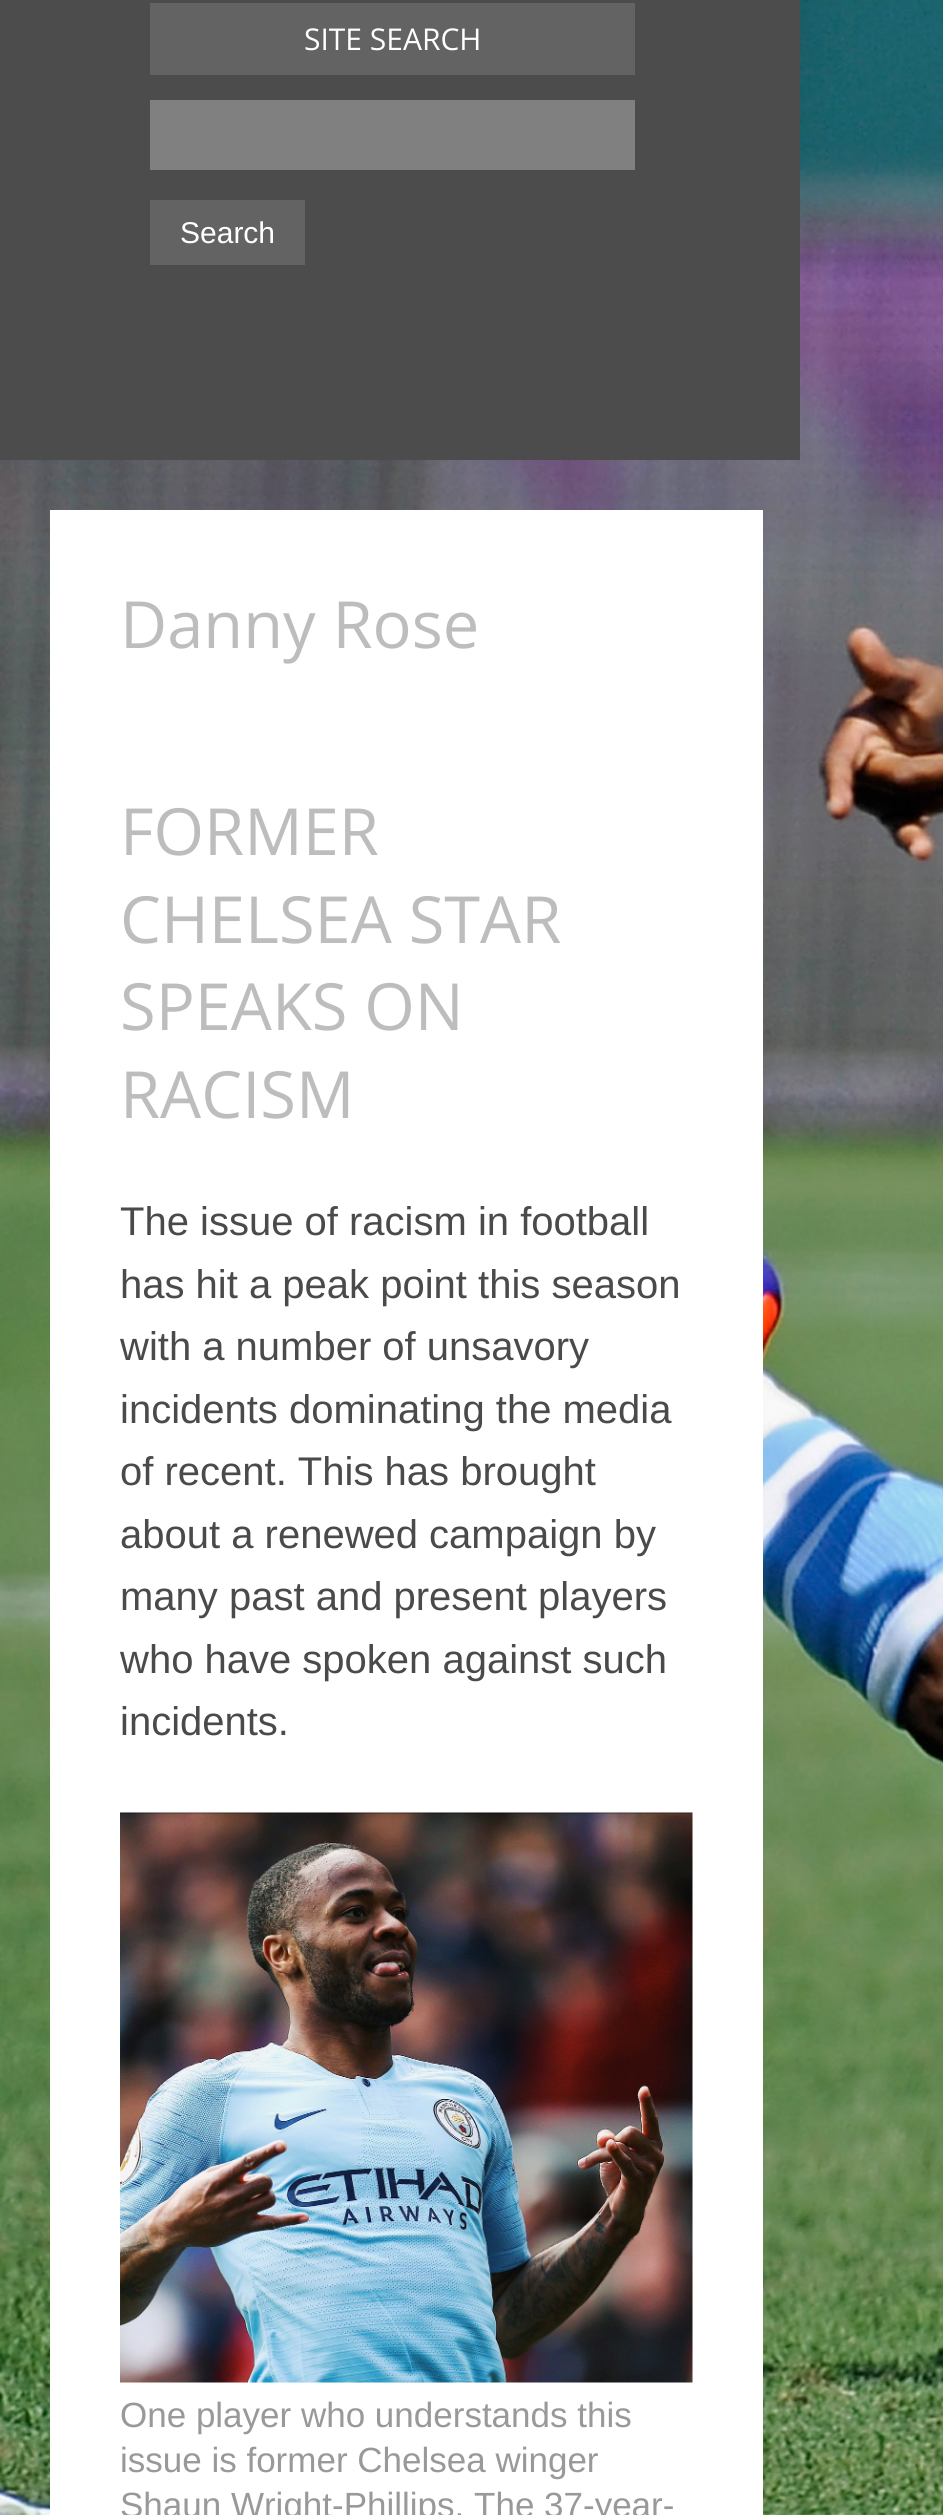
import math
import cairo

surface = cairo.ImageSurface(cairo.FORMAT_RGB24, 943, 2515)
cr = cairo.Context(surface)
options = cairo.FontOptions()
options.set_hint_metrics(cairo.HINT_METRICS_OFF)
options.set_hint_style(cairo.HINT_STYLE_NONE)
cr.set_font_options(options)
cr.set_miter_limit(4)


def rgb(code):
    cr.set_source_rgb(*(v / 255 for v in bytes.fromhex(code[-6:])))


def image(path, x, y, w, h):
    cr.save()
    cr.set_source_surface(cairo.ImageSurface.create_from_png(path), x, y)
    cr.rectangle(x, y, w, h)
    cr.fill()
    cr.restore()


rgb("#ffffff")
cr.paint()
image("img/1.png", 0, 0, 943, 2515)
for x, y, w, h, color in [
    (0, 0, 800, 460, "#4c4c4c"),
    (150, 3, 485, 72, "#646363"),
    (150, 100, 485, 70, "#808080"),
    (150, 200, 155, 65, "#646363"),
    (50, 510, 713, 2005, "#ffffff"),
]:
    rgb(color)
    cr.rectangle(x, y, w, h)
    cr.fill()
image("img/2.png", 120, 1812, 573, 571)
cr.select_font_face("Open Sans")
cr.set_font_size(30)
cr.move_to(304, 50)
cr.show_text("SITE SEARCH")
cr.select_font_face("Liberation Sans")
cr.move_to(180, 243)
cr.show_text("Search")
cr.select_font_face("Open Sans")
cr.set_font_size(65)
rgb("#bdbdbd")
for x, y, s in [
    (120, 648, "Danny Rose"),
    (120, 855, "FORMER"),
    (120, 943, "CHELSEA STAR"),
    (120, 1030, "SPEAKS ON"),
    (120, 1118, "RACISM"),
]:
    cr.move_to(x, y)
    cr.show_text(s)
cr.select_font_face("Liberation Sans")
cr.set_font_size(40)
rgb("#4a4a4a")
for x, y, s in [
    (120, 1235, "The issue of racism in football"),
    (120, 1298, "has hit a peak point this season"),
    (120, 1360, "with a number of unsavory"),
    (120, 1423, "incidents dominating the media"),
    (120, 1485, "of recent. This has brought"),
    (120, 1548, "about a renewed campaign by"),
    (120, 1610, "many past and present players"),
    (120, 1673, "who have spoken against such"),
    (120, 1735, "incidents."),
]:
    cr.move_to(x, y)
    cr.show_text(s)
cr.set_font_size(35)
rgb("#999999")
for x, y, s in [
    (120, 2427, "One player who understands this"),
    (120, 2472, "issue is former Chelsea winger"),
    (120, 2517, "Shaun Wright-Phillips. The 37-year-"),
]:
    cr.move_to(x, y)
    cr.show_text(s)
surface.write_to_png("page.png")
